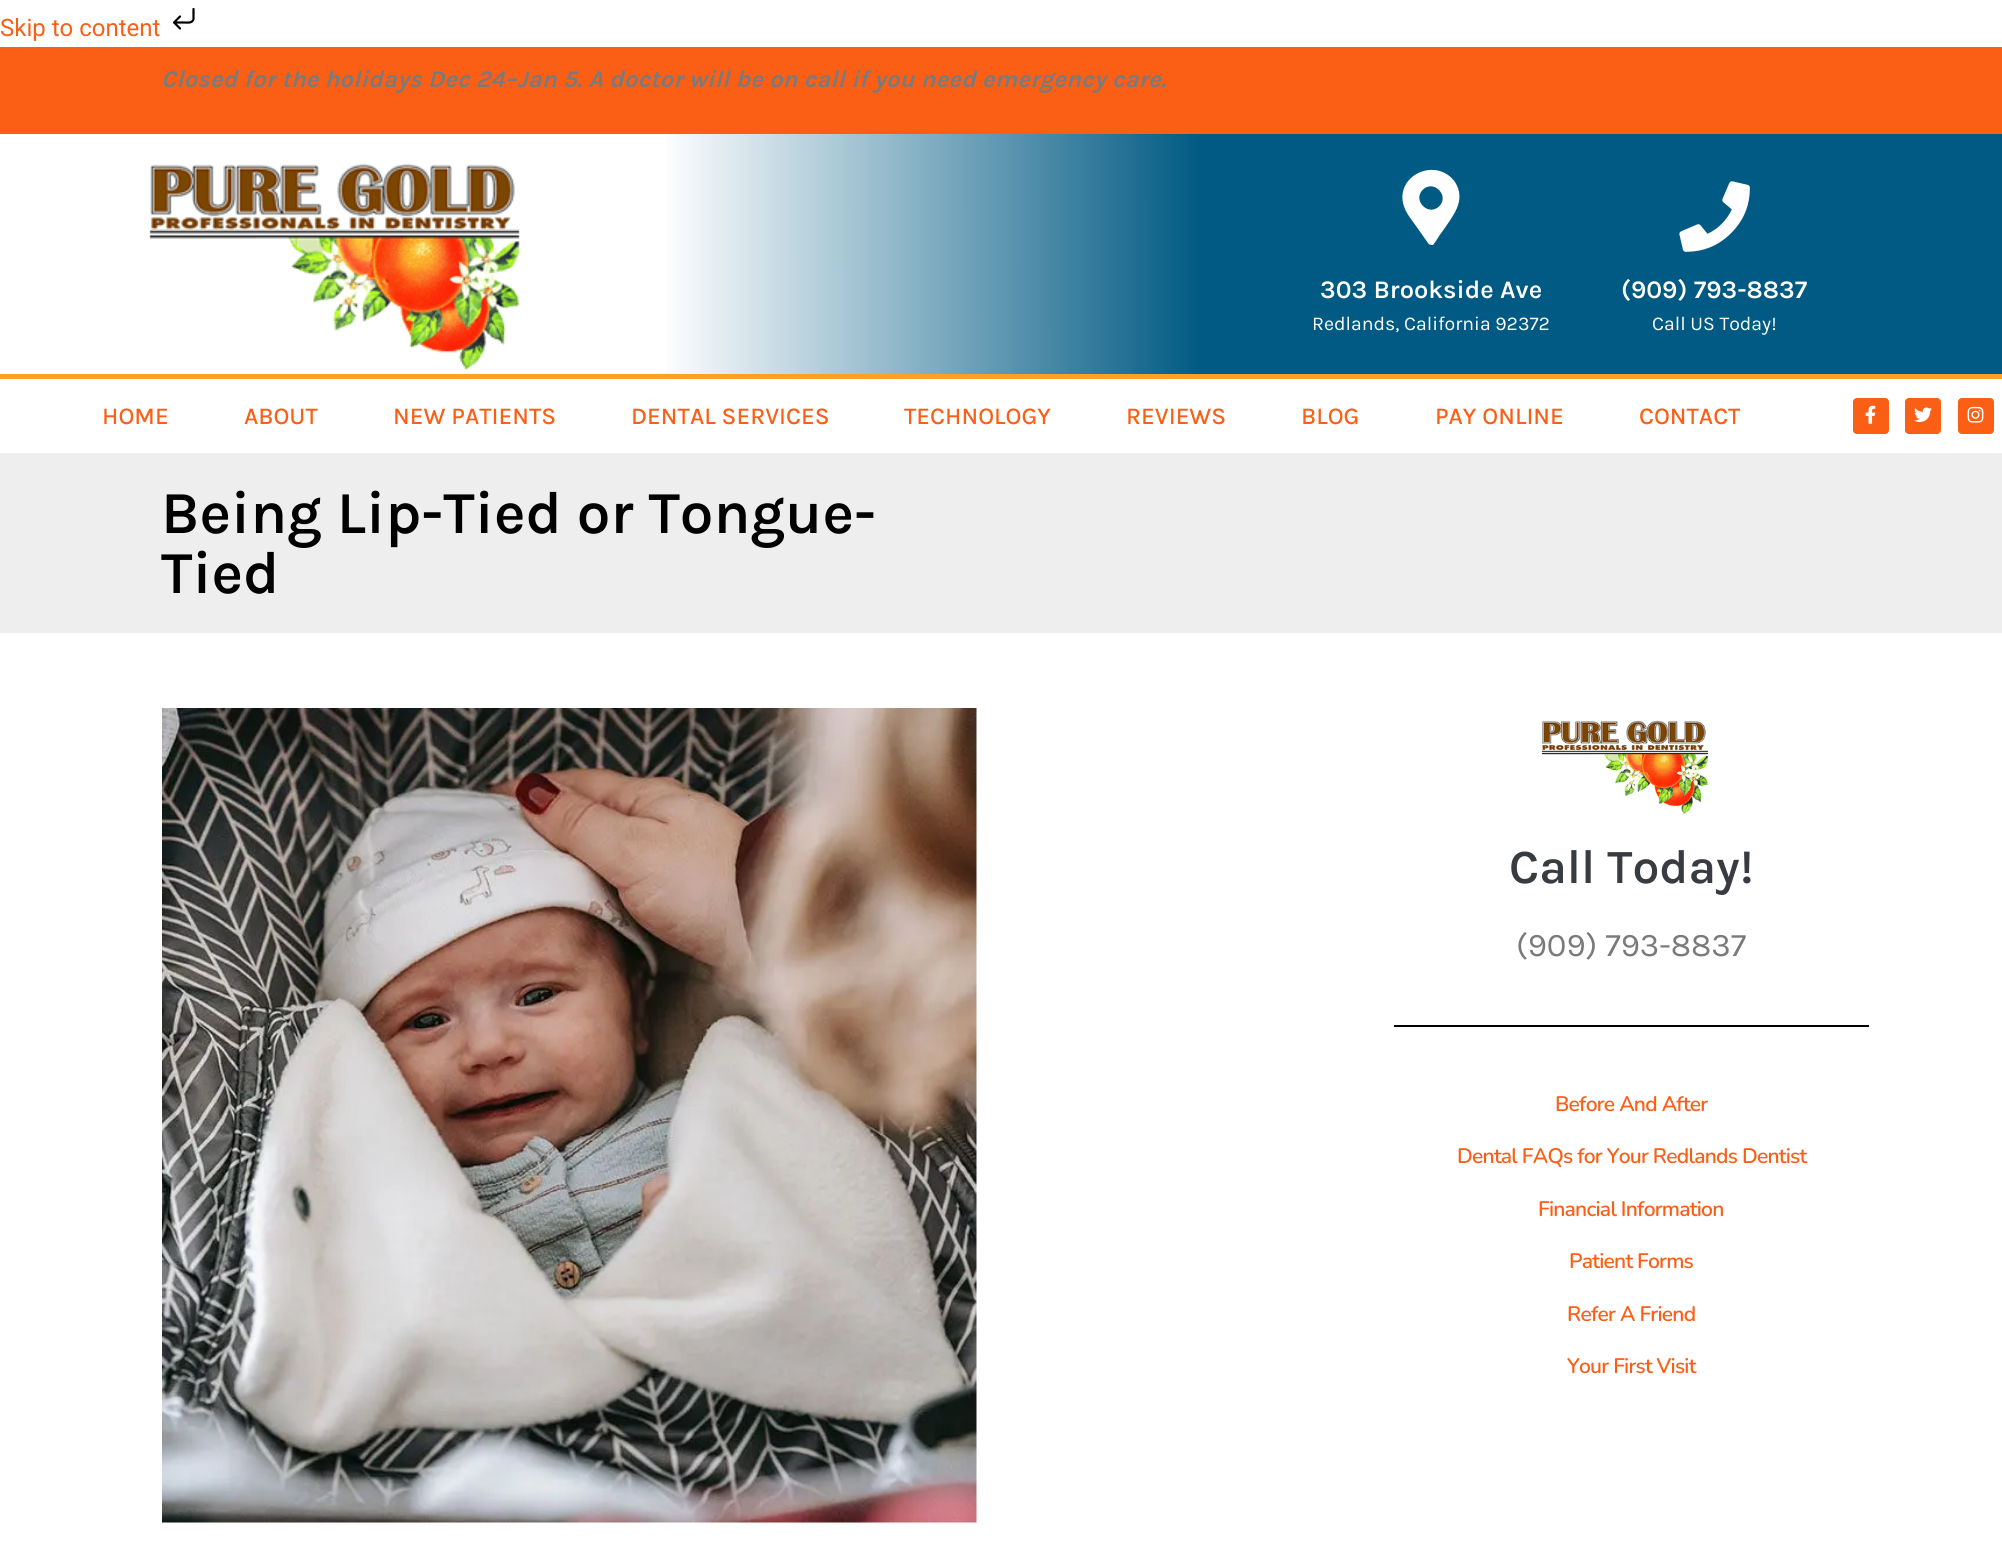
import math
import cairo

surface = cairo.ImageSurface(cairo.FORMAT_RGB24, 2002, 1551)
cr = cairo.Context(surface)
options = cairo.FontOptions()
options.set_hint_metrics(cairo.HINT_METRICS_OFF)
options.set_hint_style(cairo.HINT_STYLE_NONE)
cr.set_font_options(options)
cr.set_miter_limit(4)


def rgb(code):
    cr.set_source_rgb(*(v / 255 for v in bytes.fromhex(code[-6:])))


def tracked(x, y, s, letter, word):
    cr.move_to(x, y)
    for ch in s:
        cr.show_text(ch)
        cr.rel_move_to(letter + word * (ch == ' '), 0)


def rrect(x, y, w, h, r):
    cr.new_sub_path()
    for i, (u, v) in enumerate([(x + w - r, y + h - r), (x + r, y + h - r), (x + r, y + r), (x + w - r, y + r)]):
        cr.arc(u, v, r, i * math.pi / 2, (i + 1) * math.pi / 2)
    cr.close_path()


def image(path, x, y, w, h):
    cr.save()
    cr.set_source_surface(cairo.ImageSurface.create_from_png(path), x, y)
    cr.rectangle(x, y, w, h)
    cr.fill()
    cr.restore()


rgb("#ffffff")
cr.paint()
cr.new_path()
cr.move_to(193.5, 9)
cr.line_to(193.5, 19)
cr.curve_to(192.5, 23.5, 187.5, 22.5, 184, 22.5)
cr.line_to(174, 22.5)
cr.move_to(174, 22.5)
cr.line_to(180, 16.5)
cr.move_to(174, 22.5)
cr.line_to(180, 28.5)
rgb("#000000")
cr.set_line_width(2.2)
cr.set_line_cap(cairo.LINE_CAP_ROUND)
cr.set_line_join(cairo.LINE_JOIN_ROUND)
cr.stroke()
rgb("#fb5f16")
cr.rectangle(0, 47, 2002, 87)
cr.fill()
gradient = cairo.LinearGradient(0, 254, 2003, 253)
gradient.add_color_stop_rgba(0.33, 1, 1, 1, 1)
gradient.add_color_stop_rgba(0.6, 0, 0.353, 0.514, 1)
cr.set_source(gradient)
cr.rectangle(666, 134, 1336, 240)
cr.fill()
image("img/1.png", 149, 163, 371, 208)
rgb("#ffffff")
cr.new_path()
cr.move_to(1428, 243)
cr.line_to(1416, 226)
cr.curve_to(1411, 219, 1405, 212, 1403, 203)
cr.curve_to(1397, 174, 1437, 157, 1455, 182)
cr.curve_to(1467, 201, 1452, 217, 1442, 232)
cr.curve_to(1440, 234, 1435, 243, 1433, 245)
cr.curve_to(1431, 245, 1429, 245, 1428, 243)
cr.close_path()
cr.move_to(1423, 206)
cr.curve_to(1434, 217, 1450, 201, 1439, 190)
cr.curve_to(1428, 179, 1412, 195, 1423, 206)
cr.close_path()
cr.fill()
image("img/2.png", 1679, 181, 71, 71)
rgb("#fca222")
cr.rectangle(0, 374, 2002, 5)
cr.fill()
rgb("#fb5f16")
rrect(1853, 398, 36, 36, 4)
cr.fill()
image("img/3.png", 1865, 405, 11, 19)
rrect(1905, 398, 36, 36, 4)
cr.fill()
image("img/4.png", 1914, 407, 18, 16)
rrect(1958, 398, 36, 36, 4)
cr.fill()
image("img/5.png", 1967, 406, 17, 17)
rgb("#eeeeee")
cr.rectangle(0, 453, 2002, 180)
cr.fill()
image("img/6.png", 162, 708, 815, 815)
image("img/7.png", 1542, 720, 166, 94)
rgb("#000000")
cr.rectangle(1394, 1025, 475, 2)
cr.fill()
cr.select_font_face("Roboto")
cr.set_font_size(24)
rgb("#fb5f16")
cr.move_to(0, 36)
cr.show_text("Skip to content")
cr.select_font_face("Karla", cairo.FONT_SLANT_ITALIC, cairo.FONT_WEIGHT_BOLD)
rgb("#7a7a7a")
cr.move_to(161, 87)
cr.show_text("Closed for the holidays Dec 24–Jan 5. A doctor will be on call if you need emergency care.")
cr.select_font_face("Karla SemiBold")
cr.set_font_size(25.5)
rgb("#ffffff")
cr.move_to(1320, 298)
cr.show_text("303 Brookside Ave")
cr.select_font_face("Karla")
cr.set_font_size(19.5)
cr.move_to(1312, 330)
cr.show_text("Redlands, California 92372")
cr.select_font_face("Karla SemiBold")
cr.set_font_size(25.5)
cr.move_to(1621, 298)
cr.show_text("(909) 793-8837")
cr.select_font_face("Karla")
cr.set_font_size(19.5)
cr.move_to(1652, 330)
cr.show_text("Call US Today!")
cr.select_font_face("Karla Medium")
cr.set_font_size(24)
rgb("#fb5f16")
for x, y, s in [
    (102, 424, "HOME"),
    (244, 424, "ABOUT"),
    (393, 424, "NEW PATIENTS"),
    (631, 424, "DENTAL SERVICES"),
    (904, 424, "TECHNOLOGY"),
    (1126, 424, "REVIEWS"),
    (1301, 424, "BLOG"),
    (1435, 424, "PAY ONLINE"),
    (1639, 424, "CONTACT"),
]:
    cr.move_to(x, y)
    cr.show_text(s)
cr.select_font_face("Karla SemiBold")
cr.set_font_size(60)
rgb("#000000")
cr.move_to(161, 533)
cr.show_text("Being Lip-Tied or Tongue-")
cr.move_to(161, 593)
cr.show_text("Tied")
cr.set_font_size(48)
rgb("#383c41")
cr.move_to(1509, 883)
cr.show_text("Call Today!")
cr.select_font_face("Karla")
cr.set_font_size(33)
rgb("#7a7a7a")
cr.move_to(1516, 956)
cr.show_text("(909) 793-8837")
cr.select_font_face("Nunito SemiBold")
cr.set_font_size(21)
rgb("#fb5f16")
for x, y, s in [
    (1555, 1111, "Before And After"),
    (1457, 1163, "Dental FAQs for Your Redlands Dentist"),
    (1538, 1216, "Financial Information"),
    (1569, 1268, "Patient Forms"),
    (1567, 1321, "Refer A Friend"),
    (1567, 1373, "Your First Visit"),
]:
    tracked(x, y, s, -0.75, 0)
surface.write_to_png("page.png")
